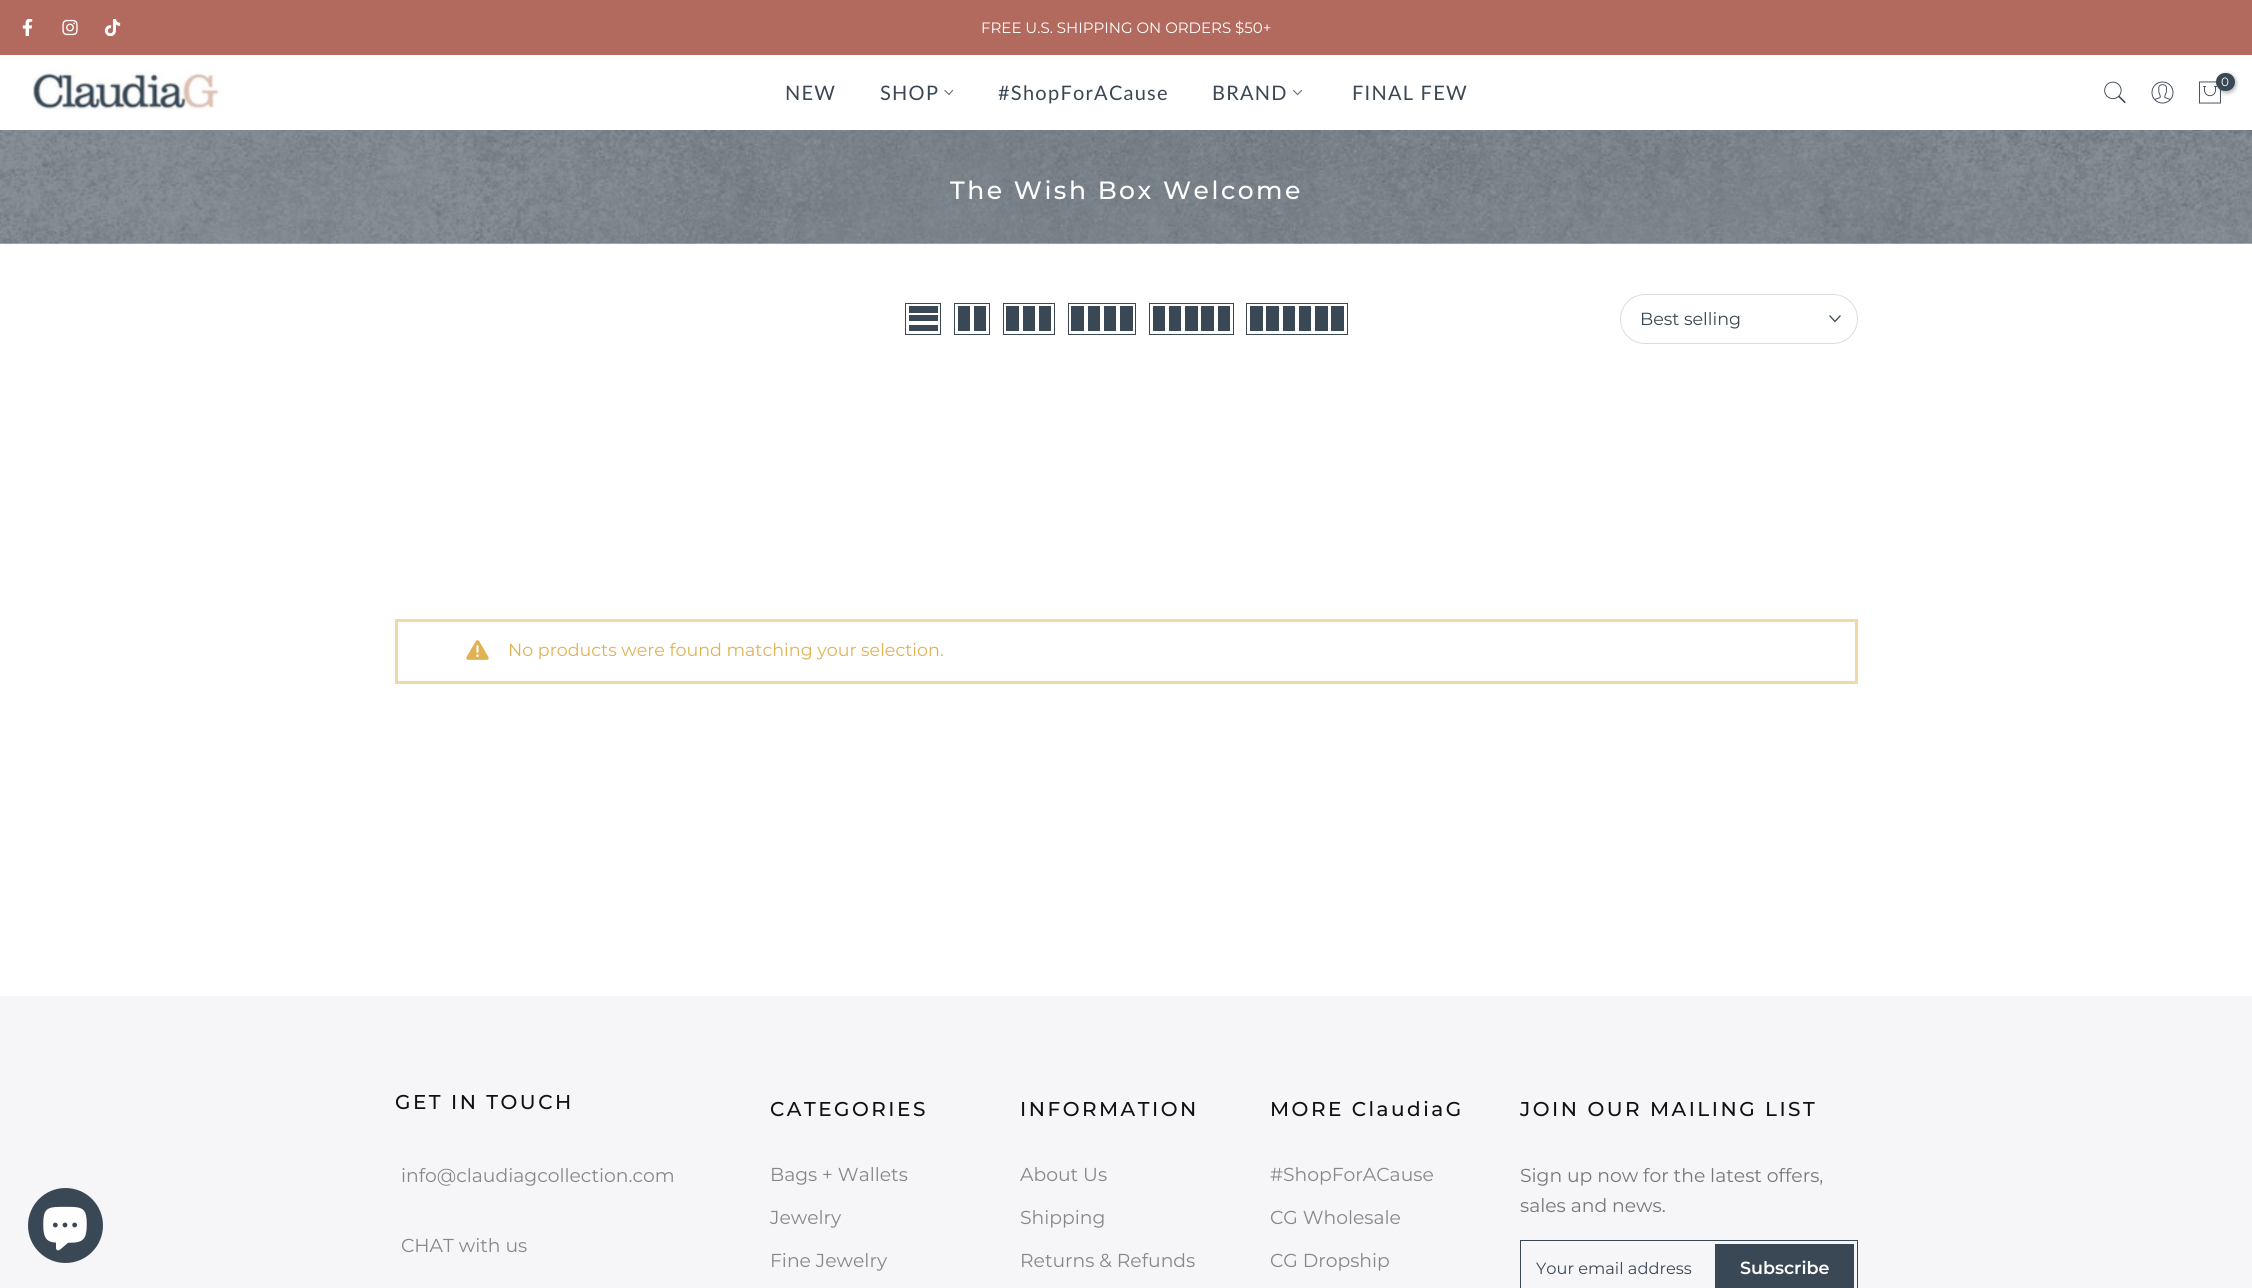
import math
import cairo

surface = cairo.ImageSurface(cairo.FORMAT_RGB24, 2252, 1288)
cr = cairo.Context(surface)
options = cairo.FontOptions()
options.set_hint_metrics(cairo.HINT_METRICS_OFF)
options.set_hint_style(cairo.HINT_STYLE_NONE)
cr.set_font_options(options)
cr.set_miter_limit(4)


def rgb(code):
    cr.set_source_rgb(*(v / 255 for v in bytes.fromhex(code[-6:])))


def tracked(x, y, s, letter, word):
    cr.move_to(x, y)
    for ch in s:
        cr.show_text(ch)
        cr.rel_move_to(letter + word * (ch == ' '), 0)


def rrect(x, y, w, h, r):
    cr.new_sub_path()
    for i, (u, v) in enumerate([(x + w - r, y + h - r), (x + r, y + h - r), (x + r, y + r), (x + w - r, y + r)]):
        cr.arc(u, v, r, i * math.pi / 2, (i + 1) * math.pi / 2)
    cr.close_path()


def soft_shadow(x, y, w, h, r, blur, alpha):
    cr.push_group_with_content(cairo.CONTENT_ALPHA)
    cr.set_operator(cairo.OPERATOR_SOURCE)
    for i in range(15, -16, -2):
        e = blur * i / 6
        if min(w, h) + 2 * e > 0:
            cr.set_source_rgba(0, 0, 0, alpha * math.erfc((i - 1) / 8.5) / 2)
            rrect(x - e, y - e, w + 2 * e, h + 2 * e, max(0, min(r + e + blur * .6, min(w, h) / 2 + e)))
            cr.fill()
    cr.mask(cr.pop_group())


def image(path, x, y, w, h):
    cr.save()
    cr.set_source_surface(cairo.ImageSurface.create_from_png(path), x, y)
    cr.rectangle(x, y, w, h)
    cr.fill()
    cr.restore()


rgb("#ffffff")
cr.paint()
rgb("#f6f6f8")
cr.rectangle(0, 996, 2252, 292)
cr.fill()
rgb("#3a4855")
cr.arc(65.5, 1225.5, 37.5, 0, 2 * math.pi)
cr.fill()
image("img/1.png", 43, 1206, 44, 45)
rgb("#b26a5e")
cr.rectangle(0, 0, 2252, 55)
cr.fill()
image("img/2.png", 22, 19, 11, 17)
image("img/3.png", 62, 19, 16, 17)
image("img/4.png", 104, 19, 17, 17)
image("img/5.png", 33, 68, 188, 42)
image("img/6.png", 2104, 81, 22, 23)
image("img/7.png", 2151, 81, 23, 23)
image("img/8.png", 2199, 81, 22, 23)
rgb("#000000")
soft_shadow(2218, 74, 18, 19, 9, 2, 0.3)
rgb("#3a4855")
rrect(2216, 73, 19, 18, 9)
cr.fill()
cr.new_path()
cr.move_to(952.5, 90.5)
cr.line_to(949, 94.5)
cr.line_to(945, 90.5)
rgb("#616d77")
cr.set_line_width(1.1)
cr.set_line_cap(cairo.LINE_CAP_SQUARE)
cr.stroke()
cr.new_path()
cr.move_to(1301.5, 90.5)
cr.line_to(1297.5, 94.5)
cr.line_to(1293.5, 90.5)
cr.stroke()
image("img/9.png", 0, 130, 2252, 114)
cr.rectangle(905.5, 303.5, 35, 31)
rgb("#3a4855")
cr.set_line_width(1)
cr.set_line_cap(cairo.LINE_CAP_BUTT)
cr.stroke()
for x, y, w, h, color in [
    (909, 325, 29, 6, "#3a4855"),
    (909, 315, 29, 6, "#3a4855"),
    (909, 306, 29, 7, "#3a4855"),
]:
    rgb(color)
    cr.rectangle(x, y, w, h)
    cr.fill()
cr.rectangle(954.5, 303.5, 35, 31)
cr.stroke()
cr.rectangle(974, 306, 12, 25)
cr.fill()
cr.rectangle(958, 306, 12, 25)
cr.fill()
cr.rectangle(1003.5, 303.5, 51, 31)
cr.stroke()
for x, y, w, h, color in [
    (1039, 306, 12, 25, "#3a4855"),
    (1023, 306, 12, 25, "#3a4855"),
    (1006, 306, 13, 25, "#3a4855"),
]:
    rgb(color)
    cr.rectangle(x, y, w, h)
    cr.fill()
cr.rectangle(1068.5, 303.5, 67, 31)
cr.stroke()
for x, y, w, h, color in [
    (1120, 306, 13, 25, "#3a4855"),
    (1104, 306, 12, 25, "#3a4855"),
    (1088, 306, 12, 25, "#3a4855"),
    (1071, 306, 13, 25, "#3a4855"),
]:
    rgb(color)
    cr.rectangle(x, y, w, h)
    cr.fill()
cr.rectangle(1149.5, 303.5, 84, 31)
cr.stroke()
for x, y, w, h, color in [
    (1218, 306, 12, 25, "#3a4855"),
    (1201, 306, 13, 25, "#3a4855"),
    (1185, 306, 13, 25, "#3a4855"),
    (1169, 306, 12, 25, "#3a4855"),
    (1153, 306, 12, 25, "#3a4855"),
]:
    rgb(color)
    cr.rectangle(x, y, w, h)
    cr.fill()
cr.rectangle(1246.5, 303.5, 101, 31)
cr.stroke()
for x, y, w, h, color in [
    (1331, 306, 13, 25, "#3a4855"),
    (1315, 306, 13, 25, "#3a4855"),
    (1299, 306, 12, 25, "#3a4855"),
    (1283, 306, 12, 25, "#3a4855"),
    (1266, 306, 13, 25, "#3a4855"),
    (1250, 306, 13, 25, "#3a4855"),
]:
    rgb(color)
    cr.rectangle(x, y, w, h)
    cr.fill()
rrect(1620.5, 294.5, 237, 49, 24.5)
rgb("#dddddd")
cr.stroke()
cr.new_path()
cr.move_to(1840, 316)
cr.line_to(1835, 321.5)
cr.line_to(1830, 316)
rgb("#3a4855")
cr.set_line_width(1.3)
cr.set_line_cap(cairo.LINE_CAP_SQUARE)
cr.stroke()
cr.rectangle(396.5, 620.5, 1460, 62)
rgb("#f0d9a9")
cr.set_line_width(3)
cr.set_line_cap(cairo.LINE_CAP_BUTT)
cr.stroke()
image("img/10.png", 466, 640, 23, 20)
cr.rectangle(1520.5, 1240.5, 337, 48)
rgb("#3a4855")
cr.set_line_width(1)
cr.stroke()
cr.rectangle(1715, 1244, 139, 44)
cr.fill()
cr.select_font_face("Montserrat")
cr.set_font_size(15)
rgb("#ffffff")
cr.move_to(981, 33)
cr.show_text("FREE U.S. SHIPPING ON ORDERS $50+")
cr.set_font_size(12)
cr.move_to(2221, 86)
cr.show_text("0")
cr.select_font_face("Lato")
cr.set_font_size(20)
rgb("#3a4855")
for x, y, s in [
    (785, 100, "NEW"),
    (880, 100, "SHOP"),
    (998, 100, "#ShopForACause"),
    (1212, 100, "BRAND"),
    (1352, 100, "FINAL FEW"),
]:
    tracked(x, y, s, 1.25, 0)
cr.select_font_face("Montserrat Medium")
cr.set_font_size(25)
rgb("#ffffff")
tracked(950, 199, "The Wish Box Welcome", 2.5, 0)
cr.select_font_face("Montserrat")
cr.set_font_size(17.5)
rgb("#3a4855")
cr.move_to(1640, 325)
cr.show_text("Best selling")
rgb("#e0b252")
cr.move_to(508, 656)
cr.show_text("No products were found matching your selection.")
cr.select_font_face("Montserrat Medium")
cr.set_font_size(20)
rgb("#111111")
tracked(395, 1109, "GET IN TOUCH", 2.5, 0)
cr.select_font_face("Montserrat")
cr.set_font_size(18.75)
rgb("#878787")
cr.move_to(401, 1182)
cr.show_text("info@claudiagcollection.com")
cr.move_to(401, 1252)
cr.show_text("CHAT with us")
cr.select_font_face("Montserrat Medium")
cr.set_font_size(20)
rgb("#111111")
tracked(770, 1116, "CATEGORIES", 2.5, 0)
cr.select_font_face("Montserrat")
cr.set_font_size(18.75)
rgb("#878787")
for x, y, s in [
    (770, 1181, "Bags + Wallets"),
    (770, 1224, "Jewelry"),
    (770, 1267, "Fine Jewelry"),
]:
    cr.move_to(x, y)
    cr.show_text(s)
cr.select_font_face("Montserrat Medium")
cr.set_font_size(20)
rgb("#111111")
tracked(1020, 1116, "INFORMATION", 2.5, 0)
cr.select_font_face("Montserrat")
cr.set_font_size(18.75)
rgb("#878787")
for x, y, s in [
    (1020, 1181, "About Us"),
    (1020, 1224, "Shipping"),
    (1020, 1267, "Returns & Refunds"),
]:
    cr.move_to(x, y)
    cr.show_text(s)
cr.select_font_face("Montserrat Medium")
cr.set_font_size(20)
rgb("#111111")
tracked(1270, 1116, "MORE ClaudiaG", 2.5, 0)
cr.select_font_face("Montserrat")
cr.set_font_size(18.75)
rgb("#878787")
for x, y, s in [
    (1270, 1181, "#ShopForACause"),
    (1270, 1224, "CG Wholesale"),
    (1270, 1267, "CG Dropship"),
]:
    cr.move_to(x, y)
    cr.show_text(s)
cr.select_font_face("Montserrat Medium")
cr.set_font_size(20)
rgb("#111111")
tracked(1520, 1116, "JOIN OUR MAILING LIST", 2.5, 0)
cr.select_font_face("Montserrat")
cr.set_font_size(18.75)
rgb("#777777")
cr.move_to(1520, 1182)
cr.show_text("Sign up now for the latest offers,")
cr.move_to(1520, 1212)
cr.show_text("sales and news.")
cr.set_font_size(16.25)
rgb("#3a4855")
cr.move_to(1536, 1274)
cr.show_text("Your email address")
cr.select_font_face("Montserrat SemiBold")
cr.set_font_size(17.5)
rgb("#ffffff")
cr.move_to(1740, 1274)
cr.show_text("Subscribe")
surface.write_to_png("page.png")
